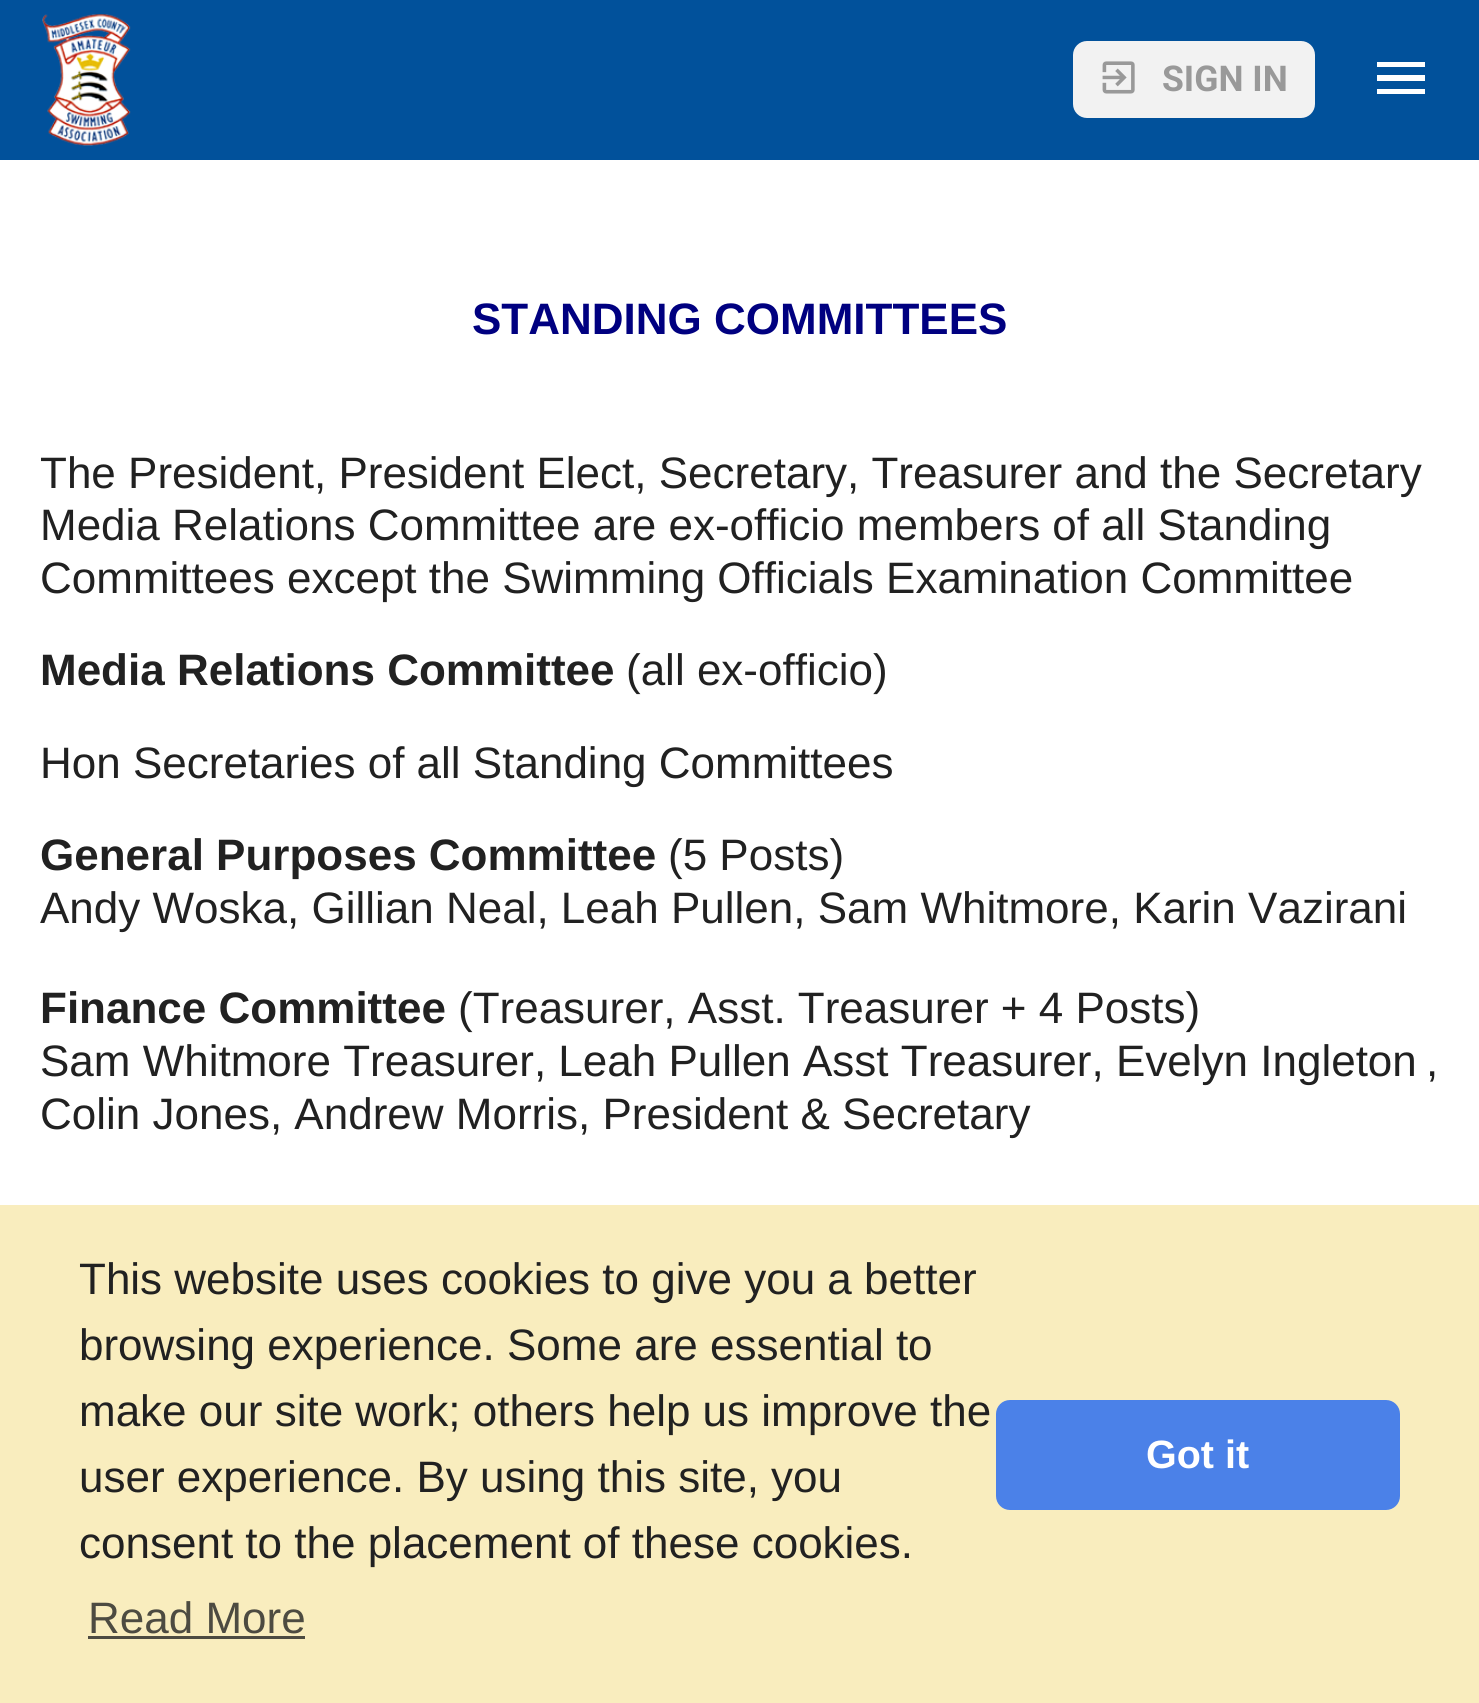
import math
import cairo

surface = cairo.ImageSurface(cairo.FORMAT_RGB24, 1479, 1703)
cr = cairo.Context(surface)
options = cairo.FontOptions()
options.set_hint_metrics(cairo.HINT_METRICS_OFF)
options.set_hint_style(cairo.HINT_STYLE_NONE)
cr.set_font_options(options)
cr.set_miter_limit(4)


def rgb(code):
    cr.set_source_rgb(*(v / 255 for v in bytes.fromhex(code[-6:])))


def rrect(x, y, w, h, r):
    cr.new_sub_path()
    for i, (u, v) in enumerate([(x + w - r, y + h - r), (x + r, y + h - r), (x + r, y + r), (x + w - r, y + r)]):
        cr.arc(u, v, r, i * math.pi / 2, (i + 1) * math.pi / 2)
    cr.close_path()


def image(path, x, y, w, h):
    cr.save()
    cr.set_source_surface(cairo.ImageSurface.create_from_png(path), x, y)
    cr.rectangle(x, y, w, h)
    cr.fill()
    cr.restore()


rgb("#ffffff")
cr.paint()
rgb("#01519b")
cr.rectangle(0, 0, 1479, 160)
cr.fill()
image("img/1.png", 42, 14, 89, 132)
rgb("#f2f2f2")
rrect(1073, 41, 242, 77, 14)
cr.fill()
image("img/2.png", 1102, 61, 33, 33)
rgb("#ffffff")
cr.new_path()
cr.move_to(1377, 62)
cr.line_to(1425, 62)
cr.line_to(1425, 67)
cr.line_to(1377, 67)
cr.close_path()
cr.move_to(1377, 75)
cr.line_to(1425, 75)
cr.line_to(1425, 81)
cr.line_to(1377, 81)
cr.close_path()
cr.move_to(1377, 89)
cr.line_to(1425, 89)
cr.line_to(1425, 94)
cr.line_to(1377, 94)
cr.close_path()
cr.fill()
rgb("#f9edbe")
cr.rectangle(0, 1205, 1479, 498)
cr.fill()
rgb("#4d4b41")
cr.rectangle(88, 1636, 217, 3)
cr.fill()
rgb("#4b81e8")
rrect(996, 1400, 404, 110, 14)
cr.fill()
cr.select_font_face("Roboto", cairo.FONT_SLANT_NORMAL, cairo.FONT_WEIGHT_BOLD)
cr.set_font_size(35.5)
rgb("#999999")
cr.move_to(1162, 91)
cr.show_text("SIGN IN")
cr.select_font_face("Liberation Sans", cairo.FONT_SLANT_NORMAL, cairo.FONT_WEIGHT_BOLD)
cr.set_font_size(44)
rgb("#000080")
cr.move_to(472, 334)
cr.show_text("STANDING COMMITTEES")
cr.select_font_face("Liberation Sans")
rgb("#212121")
for x, y, s in [
    (40, 488, "The President, President Elect, Secretary, Treasurer and the Secretary"),
    (40, 540, "Media Relations Committee are ex-officio members of all Standing"),
    (40, 593, "Committees except the Swimming Officials Examination Committee"),
]:
    cr.move_to(x, y)
    cr.show_text(s)
cr.select_font_face("Liberation Sans", cairo.FONT_SLANT_NORMAL, cairo.FONT_WEIGHT_BOLD)
cr.move_to(40, 685)
cr.show_text("Media Relations Committee")
cr.select_font_face("Liberation Sans")
cr.move_to(626, 685)
cr.show_text("(all ex-officio)")
cr.move_to(40, 778)
cr.show_text("Hon Secretaries of all Standing Committees")
cr.select_font_face("Liberation Sans", cairo.FONT_SLANT_NORMAL, cairo.FONT_WEIGHT_BOLD)
cr.move_to(40, 870)
cr.show_text("General Purposes Committee")
cr.select_font_face("Liberation Sans")
cr.move_to(668, 870)
cr.show_text("(5 Posts)")
cr.move_to(40, 923)
cr.show_text("Andy Woska, Gillian Neal, Leah Pullen, Sam Whitmore, Karin Vazirani")
cr.select_font_face("Liberation Sans", cairo.FONT_SLANT_NORMAL, cairo.FONT_WEIGHT_BOLD)
cr.move_to(40, 1023)
cr.show_text("Finance Committee")
cr.select_font_face("Liberation Sans")
for x, y, s in [
    (458, 1023, "(Treasurer, Asst. Treasurer + 4 Posts)"),
    (40, 1076, "Sam Whitmore Treasurer, Leah Pullen Asst Treasurer, Evelyn Ingleton"),
    (1426, 1076, ","),
    (40, 1129, "Colin Jones, Andrew Morris, President & Secretary"),
    (79, 1294, "This website uses cookies to give you a better"),
    (79, 1360, "browsing experience. Some are essential to"),
    (79, 1426, "make our site work; others help us improve the"),
    (79, 1492, "user experience. By using this site, you"),
    (79, 1558, "consent to the placement of these cookies."),
]:
    cr.move_to(x, y)
    cr.show_text(s)
rgb("#4d4b41")
cr.move_to(88, 1633)
cr.show_text("Read More")
cr.select_font_face("Liberation Sans", cairo.FONT_SLANT_NORMAL, cairo.FONT_WEIGHT_BOLD)
cr.set_font_size(39.5)
rgb("#ffffff")
cr.move_to(1146, 1468)
cr.show_text("Got it")
surface.write_to_png("page.png")
